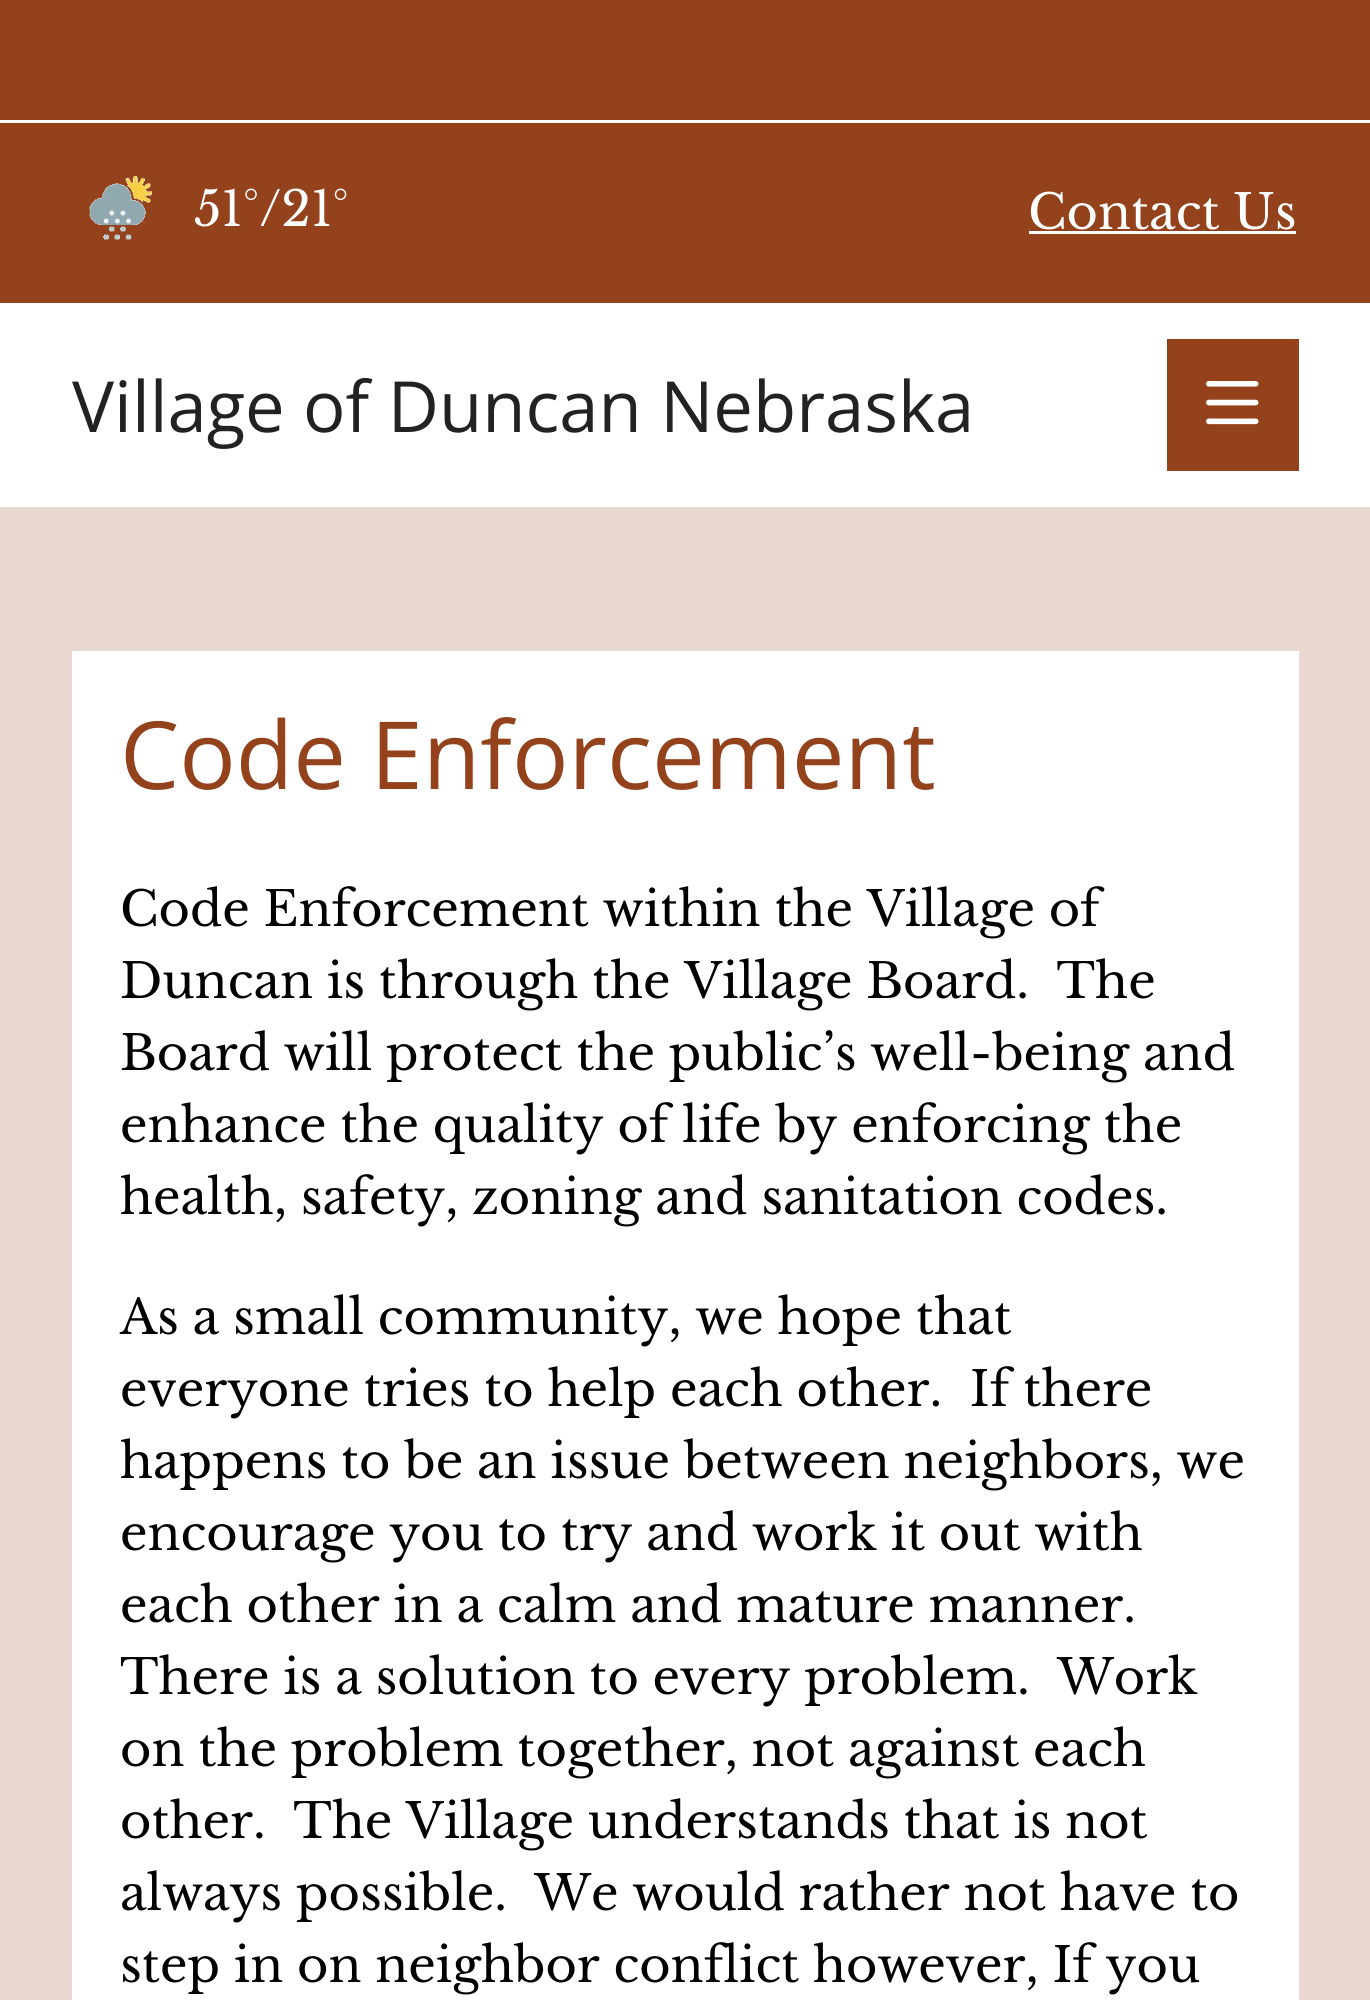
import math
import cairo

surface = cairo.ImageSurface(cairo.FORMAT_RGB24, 1370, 2000)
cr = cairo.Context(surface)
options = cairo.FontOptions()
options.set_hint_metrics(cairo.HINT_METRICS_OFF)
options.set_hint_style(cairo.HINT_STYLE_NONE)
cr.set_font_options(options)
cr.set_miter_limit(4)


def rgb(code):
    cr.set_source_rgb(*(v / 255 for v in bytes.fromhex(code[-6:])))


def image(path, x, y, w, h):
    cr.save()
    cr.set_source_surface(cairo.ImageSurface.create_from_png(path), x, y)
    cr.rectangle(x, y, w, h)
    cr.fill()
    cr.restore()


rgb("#e9d9d2")
cr.paint()
rgb("#93421c")
cr.rectangle(0, 0, 1370, 303)
cr.fill()
rgb("#ffffff")
cr.rectangle(0, 120, 1370, 3)
cr.fill()
image("img/1.png", 89, 176, 63, 64)
for x, y, w, h, color in [
    (1029, 231, 267, 3, "#ffffff"),
    (0, 303, 1370, 204, "#ffffff"),
    (1167, 339, 132, 132, "#93421c"),
]:
    rgb(color)
    cr.rectangle(x, y, w, h)
    cr.fill()
image("img/2.png", 1206, 381, 53, 44)
rgb("#ffffff")
cr.rectangle(72, 651, 1227, 1349)
cr.fill()
cr.select_font_face("Libre Baskerville")
cr.set_font_size(48)
cr.move_to(194, 226)
cr.show_text("51°/21°")
cr.move_to(1028, 229)
cr.show_text("Contact Us")
cr.select_font_face("Open Sans")
cr.set_font_size(70.6)
rgb("#222222")
cr.move_to(72, 432)
cr.show_text("Village of Duncan Nebraska")
cr.set_font_size(94)
rgb("#93421c")
cr.move_to(120, 789)
cr.show_text("Code Enforcement")
cr.select_font_face("Libre Baskerville")
cr.set_font_size(48)
rgb("#000000")
for x, y, s in [
    (120, 926, "Code Enforcement within the Village of"),
    (120, 998, "Duncan is through the Village Board.  The"),
    (120, 1070, "Board will protect the public’s well-being and"),
    (120, 1142, "enhance the quality of life by enforcing the"),
    (120, 1214, "health, safety, zoning and sanitation codes."),
    (120, 1334, "As a small community, we hope that"),
    (120, 1406, "everyone tries to help each other.  If there"),
    (120, 1478, "happens to be an issue between neighbors, we"),
    (120, 1550, "encourage you to try and work it out with"),
    (120, 1622, "each other in a calm and mature manner."),
    (120, 1694, "There is a solution to every problem.  Work"),
    (120, 1766, "on the problem together, not against each"),
    (120, 1838, "other.  The Village understands that is not"),
    (120, 1910, "always possible.  We would rather not have to"),
    (120, 1982, "step in on neighbor conflict however, If you"),
]:
    cr.move_to(x, y)
    cr.show_text(s)
surface.write_to_png("page.png")
